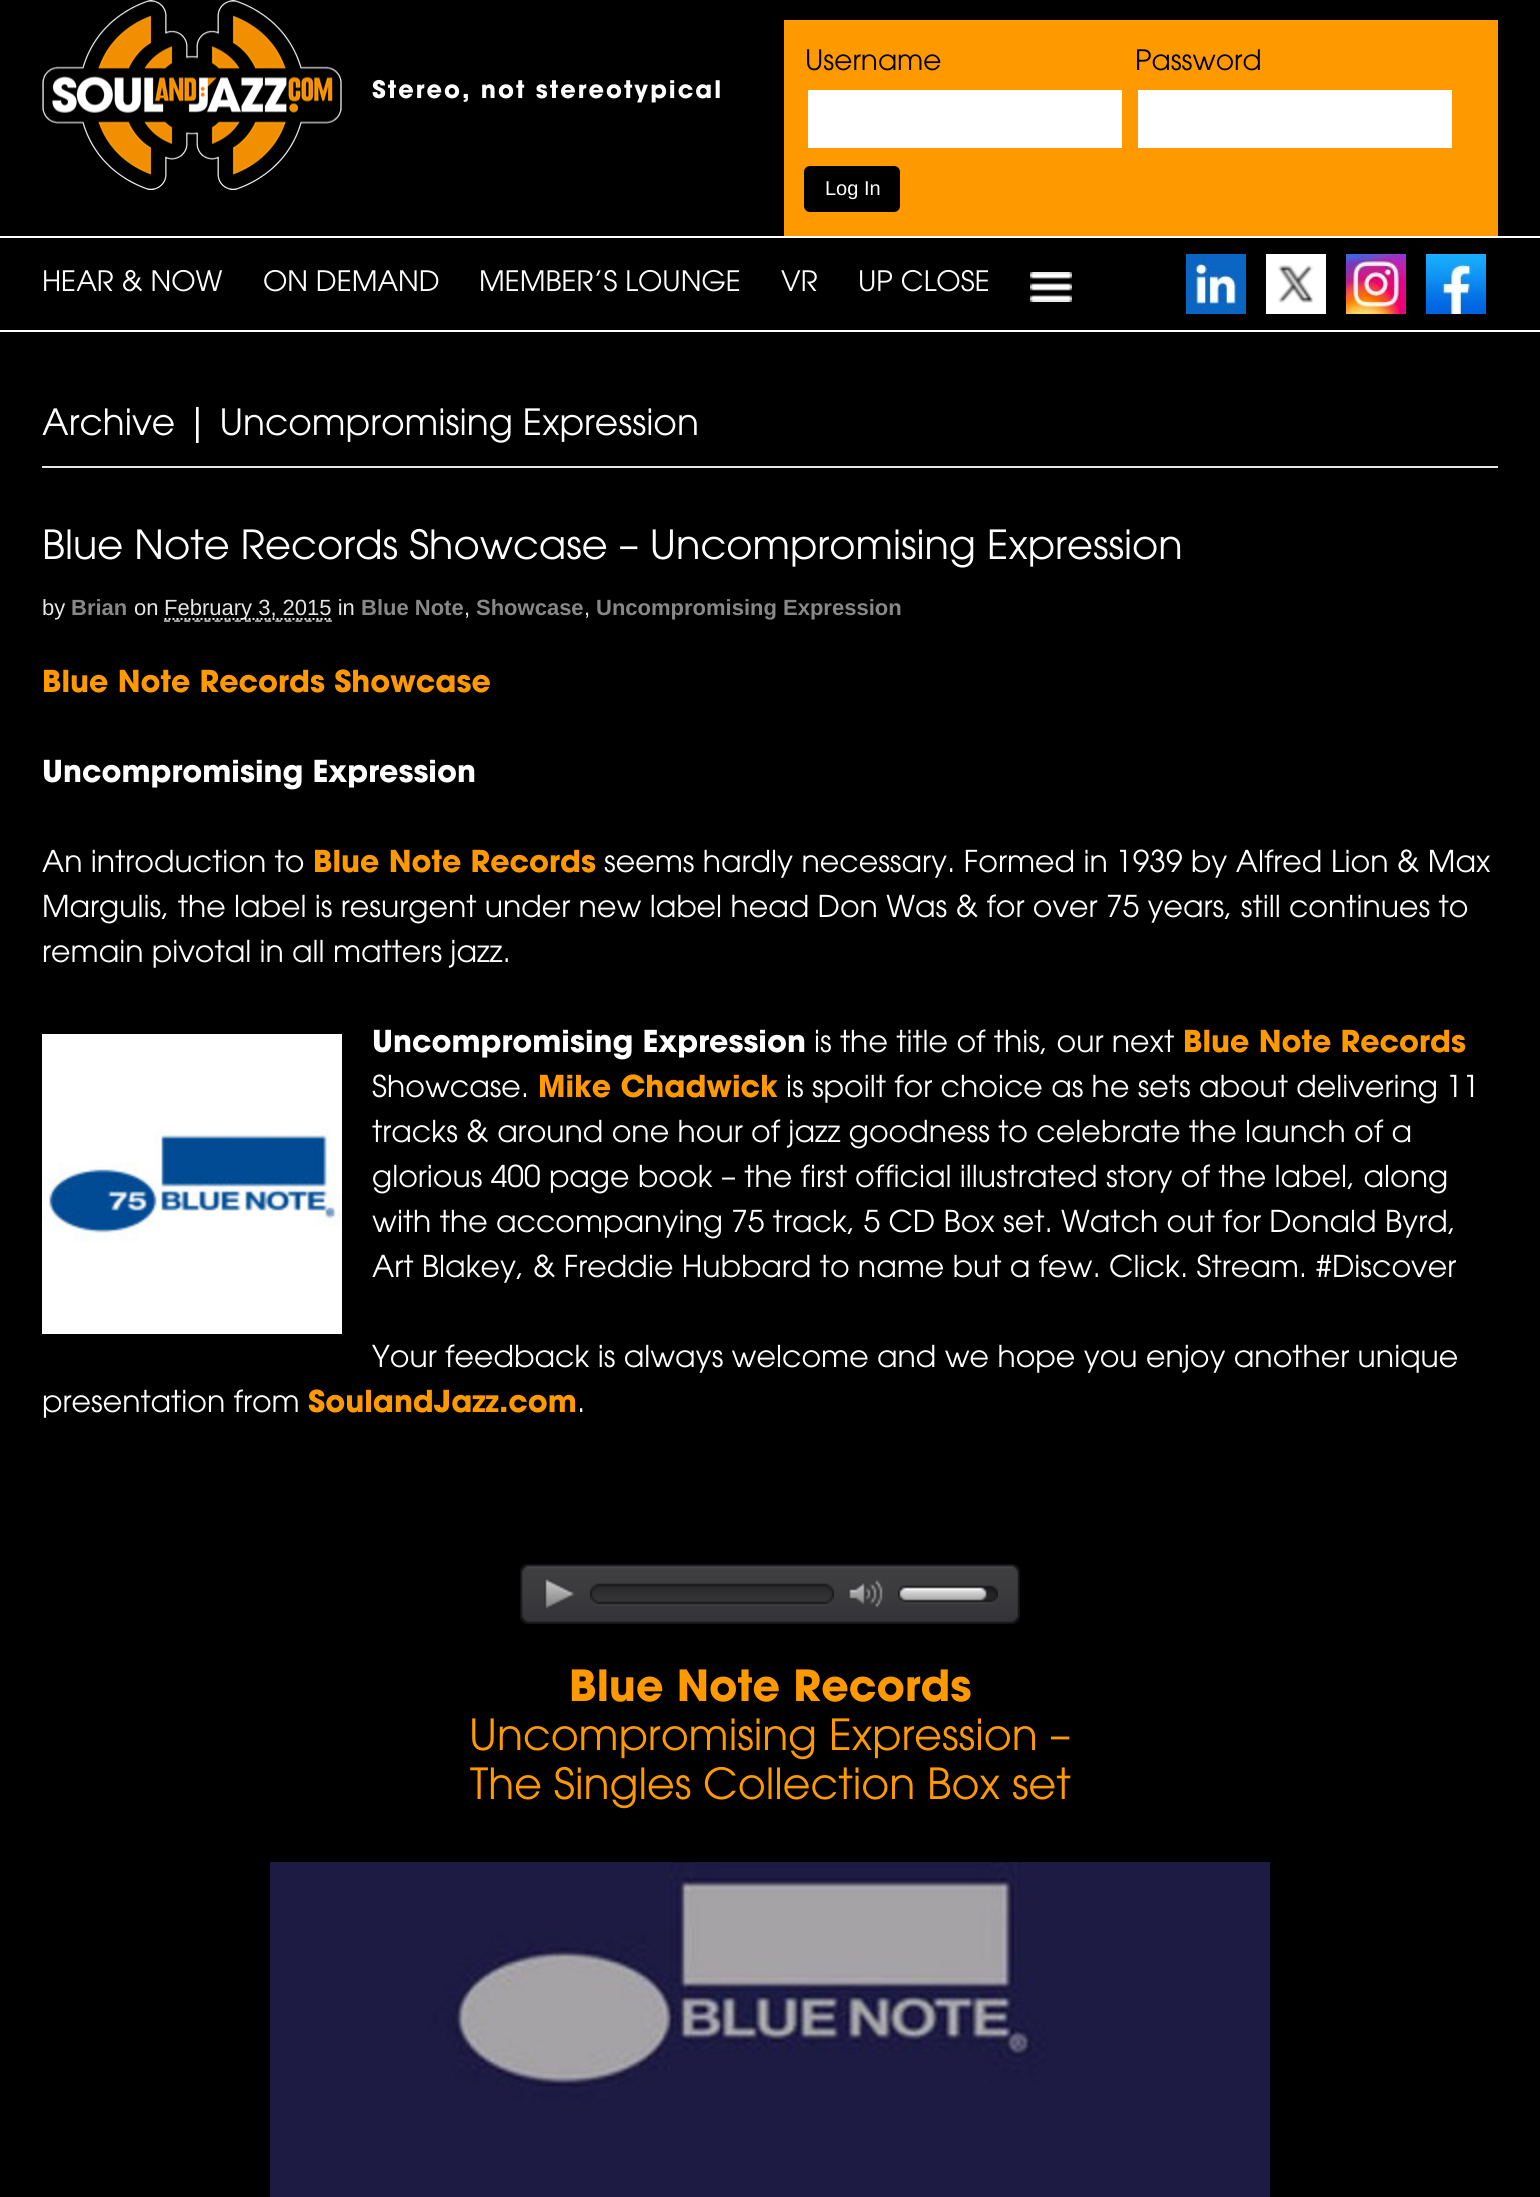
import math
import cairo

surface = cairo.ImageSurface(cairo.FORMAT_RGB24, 1540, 2197)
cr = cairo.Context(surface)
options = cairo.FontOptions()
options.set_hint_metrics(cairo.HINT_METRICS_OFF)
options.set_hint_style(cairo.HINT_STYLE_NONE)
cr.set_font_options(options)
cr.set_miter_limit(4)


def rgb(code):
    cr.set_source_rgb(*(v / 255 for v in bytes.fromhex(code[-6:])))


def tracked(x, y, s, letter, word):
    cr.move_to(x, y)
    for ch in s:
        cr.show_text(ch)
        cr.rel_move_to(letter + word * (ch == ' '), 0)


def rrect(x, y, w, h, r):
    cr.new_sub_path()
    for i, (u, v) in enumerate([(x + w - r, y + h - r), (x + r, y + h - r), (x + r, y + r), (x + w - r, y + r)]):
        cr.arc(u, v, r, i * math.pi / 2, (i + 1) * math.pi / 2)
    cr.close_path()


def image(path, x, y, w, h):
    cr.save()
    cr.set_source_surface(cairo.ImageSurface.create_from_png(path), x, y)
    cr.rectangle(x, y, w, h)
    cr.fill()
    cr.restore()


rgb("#000000")
cr.paint()
image("img/1.png", 42, 0, 300, 190)
for x, y, w, h, color in [
    (784, 20, 714, 216, "#ff9900"),
    (808, 90, 314, 58, "#ffffff"),
    (1138, 90, 314, 58, "#ffffff"),
]:
    rgb(color)
    cr.rectangle(x, y, w, h)
    cr.fill()
rgb("#000000")
rrect(804, 166, 96, 46, 6)
cr.fill()
rgb("#ffffff")
cr.rectangle(0, 236, 1540, 2)
cr.fill()
cr.rectangle(0, 330, 1540, 2)
cr.fill()
image("img/2.png", 1030, 272, 42, 30)
image("img/3.png", 1186, 254, 60, 60)
image("img/4.png", 1266, 254, 60, 60)
image("img/5.png", 1346, 254, 60, 60)
image("img/6.png", 1426, 254, 60, 60)
rgb("#e6e6e6")
cr.rectangle(42, 466, 1456, 2)
cr.fill()
cr.new_path()
cr.move_to(164, 621)
cr.line_to(332, 621)
rgb("#999999")
cr.set_dash([6, 4.12])
cr.stroke()
cr.new_path()
cr.move_to(164.5, 619)
cr.line_to(332, 619)
rgb("#e6e6e6")
cr.set_dash([2, 2])
cr.stroke()
image("img/7.png", 42, 1034, 300, 300)
image("img/8.png", 520, 1564, 16, 60)
image("img/9.png", 536, 1564, 468, 60)
image("img/10.png", 1004, 1564, 16, 60)
image("img/11.png", 544, 1579, 31, 30)
image("img/12.png", 590, 1583, 10, 23)
image("img/13.png", 600, 1583, 224, 23)
image("img/14.png", 824, 1583, 10, 23)
image("img/15.png", 848, 1579, 35, 29)
image("img/16.png", 898, 1585, 8, 19)
image("img/17.png", 906, 1585, 84, 19)
image("img/18.png", 990, 1585, 8, 19)
image("img/19.png", 899, 1587, 7, 14)
image("img/20.png", 906, 1587, 74, 14)
image("img/21.png", 980, 1587, 7, 14)
image("img/22.png", 270, 1862, 1000, 335)
cr.select_font_face("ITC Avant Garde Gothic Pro", cairo.FONT_SLANT_NORMAL, cairo.FONT_WEIGHT_BOLD)
cr.set_font_size(24)
rgb("#ffffff")
tracked(372, 98, "Stereo, not stereotypical", 2, 0)
cr.select_font_face("ITC Avant Garde Gothic Pro Light")
cr.set_font_size(28)
rgb("#000000")
cr.move_to(805, 70)
cr.show_text("Username")
cr.move_to(1135, 70)
cr.show_text("Password")
cr.select_font_face("Liberation Sans")
cr.set_font_size(20)
rgb("#ffffff")
cr.move_to(825, 195)
cr.show_text("Log In")
cr.select_font_face("ITC Avant Garde Gothic Pro Light")
cr.set_font_size(28)
for x, y, s in [
    (42, 291, "HEAR & NOW"),
    (263, 291, "ON DEMAND"),
    (479, 291, "MEMBER’S LOUNGE"),
    (781, 291, "VR"),
    (858, 291, "UP CLOSE"),
]:
    cr.move_to(x, y)
    cr.show_text(s)
cr.set_font_size(36)
cr.move_to(42, 435)
cr.show_text("Archive | Uncompromising Expression")
cr.set_font_size(40)
cr.move_to(42, 559)
cr.show_text("Blue Note Records Showcase – Uncompromising Expression")
cr.select_font_face("Liberation Sans")
cr.set_font_size(22)
rgb("#e6e6e6")
cr.move_to(42, 615)
cr.show_text("by")
cr.select_font_face("Liberation Sans", cairo.FONT_SLANT_NORMAL, cairo.FONT_WEIGHT_BOLD)
rgb("#888888")
cr.move_to(71, 615)
cr.show_text("Brian")
cr.select_font_face("Liberation Sans")
rgb("#e6e6e6")
cr.move_to(134, 615)
cr.show_text("on")
cr.move_to(164, 615)
cr.show_text("February 3, 2015 in")
cr.select_font_face("Liberation Sans", cairo.FONT_SLANT_NORMAL, cairo.FONT_WEIGHT_BOLD)
rgb("#888888")
cr.move_to(361, 615)
cr.show_text("Blue Note")
cr.select_font_face("Liberation Sans")
rgb("#e6e6e6")
cr.move_to(464, 615)
cr.show_text(",")
cr.select_font_face("Liberation Sans", cairo.FONT_SLANT_NORMAL, cairo.FONT_WEIGHT_BOLD)
rgb("#888888")
cr.move_to(476, 615)
cr.show_text("Showcase")
cr.select_font_face("Liberation Sans")
rgb("#e6e6e6")
cr.move_to(584, 615)
cr.show_text(",")
cr.select_font_face("Liberation Sans", cairo.FONT_SLANT_NORMAL, cairo.FONT_WEIGHT_BOLD)
rgb("#888888")
cr.move_to(596, 615)
cr.show_text("Uncompromising Expression")
cr.select_font_face("ITC Avant Garde Gothic Pro", cairo.FONT_SLANT_NORMAL, cairo.FONT_WEIGHT_BOLD)
cr.set_font_size(30)
rgb("#ff9900")
cr.move_to(42, 692)
cr.show_text("Blue Note Records Showcase")
rgb("#ffffff")
cr.move_to(42, 782)
cr.show_text("Uncompromising Expression")
cr.select_font_face("ITC Avant Garde Gothic Pro Light")
cr.move_to(42, 872)
cr.show_text("An introduction to")
cr.select_font_face("ITC Avant Garde Gothic Pro", cairo.FONT_SLANT_NORMAL, cairo.FONT_WEIGHT_BOLD)
rgb("#ff9900")
cr.move_to(313, 872)
cr.show_text("Blue Note Records")
cr.select_font_face("ITC Avant Garde Gothic Pro Light")
rgb("#ffffff")
for x, y, s in [
    (604, 872, "seems hardly necessary. Formed in 1939 by Alfred Lion & Max"),
    (42, 917, "Margulis, the label is resurgent under new label head Don Was & for over 75 years, still continues to"),
    (42, 962, "remain pivotal in all matters jazz."),
]:
    cr.move_to(x, y)
    cr.show_text(s)
cr.select_font_face("ITC Avant Garde Gothic Pro", cairo.FONT_SLANT_NORMAL, cairo.FONT_WEIGHT_BOLD)
cr.move_to(372, 1052)
cr.show_text("Uncompromising Expression")
cr.select_font_face("ITC Avant Garde Gothic Pro Light")
cr.move_to(814, 1052)
cr.show_text("is the title of this, our next")
cr.select_font_face("ITC Avant Garde Gothic Pro", cairo.FONT_SLANT_NORMAL, cairo.FONT_WEIGHT_BOLD)
rgb("#ff9900")
cr.move_to(1183, 1052)
cr.show_text("Blue Note Records")
cr.select_font_face("ITC Avant Garde Gothic Pro Light")
rgb("#ffffff")
cr.move_to(372, 1097)
cr.show_text("Showcase.")
cr.select_font_face("ITC Avant Garde Gothic Pro", cairo.FONT_SLANT_NORMAL, cairo.FONT_WEIGHT_BOLD)
rgb("#ff9900")
cr.move_to(538, 1097)
cr.show_text("Mike Chadwick")
cr.select_font_face("ITC Avant Garde Gothic Pro Light")
rgb("#ffffff")
for x, y, s in [
    (786, 1097, "is spoilt for choice as he sets about delivering 11"),
    (372, 1142, "tracks & around one hour of jazz goodness to celebrate the launch of a"),
    (372, 1187, "glorious 400 page book – the first official illustrated story of the label, along"),
    (372, 1232, "with the accompanying 75 track, 5 CD Box set. Watch out for Donald Byrd,"),
    (372, 1277, "Art Blakey, & Freddie Hubbard to name but a few. Click. Stream. #Discover"),
    (372, 1367, "Your feedback is always welcome and we hope you enjoy another unique"),
    (42, 1412, "presentation from"),
]:
    cr.move_to(x, y)
    cr.show_text(s)
cr.select_font_face("ITC Avant Garde Gothic Pro", cairo.FONT_SLANT_NORMAL, cairo.FONT_WEIGHT_BOLD)
rgb("#ff9900")
cr.move_to(308, 1412)
cr.show_text("SoulandJazz.com")
cr.select_font_face("ITC Avant Garde Gothic Pro Light")
rgb("#ffffff")
cr.move_to(577, 1412)
cr.show_text(".")
cr.select_font_face("ITC Avant Garde Gothic Pro", cairo.FONT_SLANT_NORMAL, cairo.FONT_WEIGHT_BOLD)
cr.set_font_size(42.7)
rgb("#ff9900")
cr.move_to(569, 1701)
cr.show_text("Blue Note Records")
cr.select_font_face("ITC Avant Garde Gothic Pro Light")
cr.move_to(469, 1750)
cr.show_text("Uncompromising Expression –")
cr.move_to(470, 1799)
cr.show_text("The Singles Collection Box set")
surface.write_to_png("page.png")
